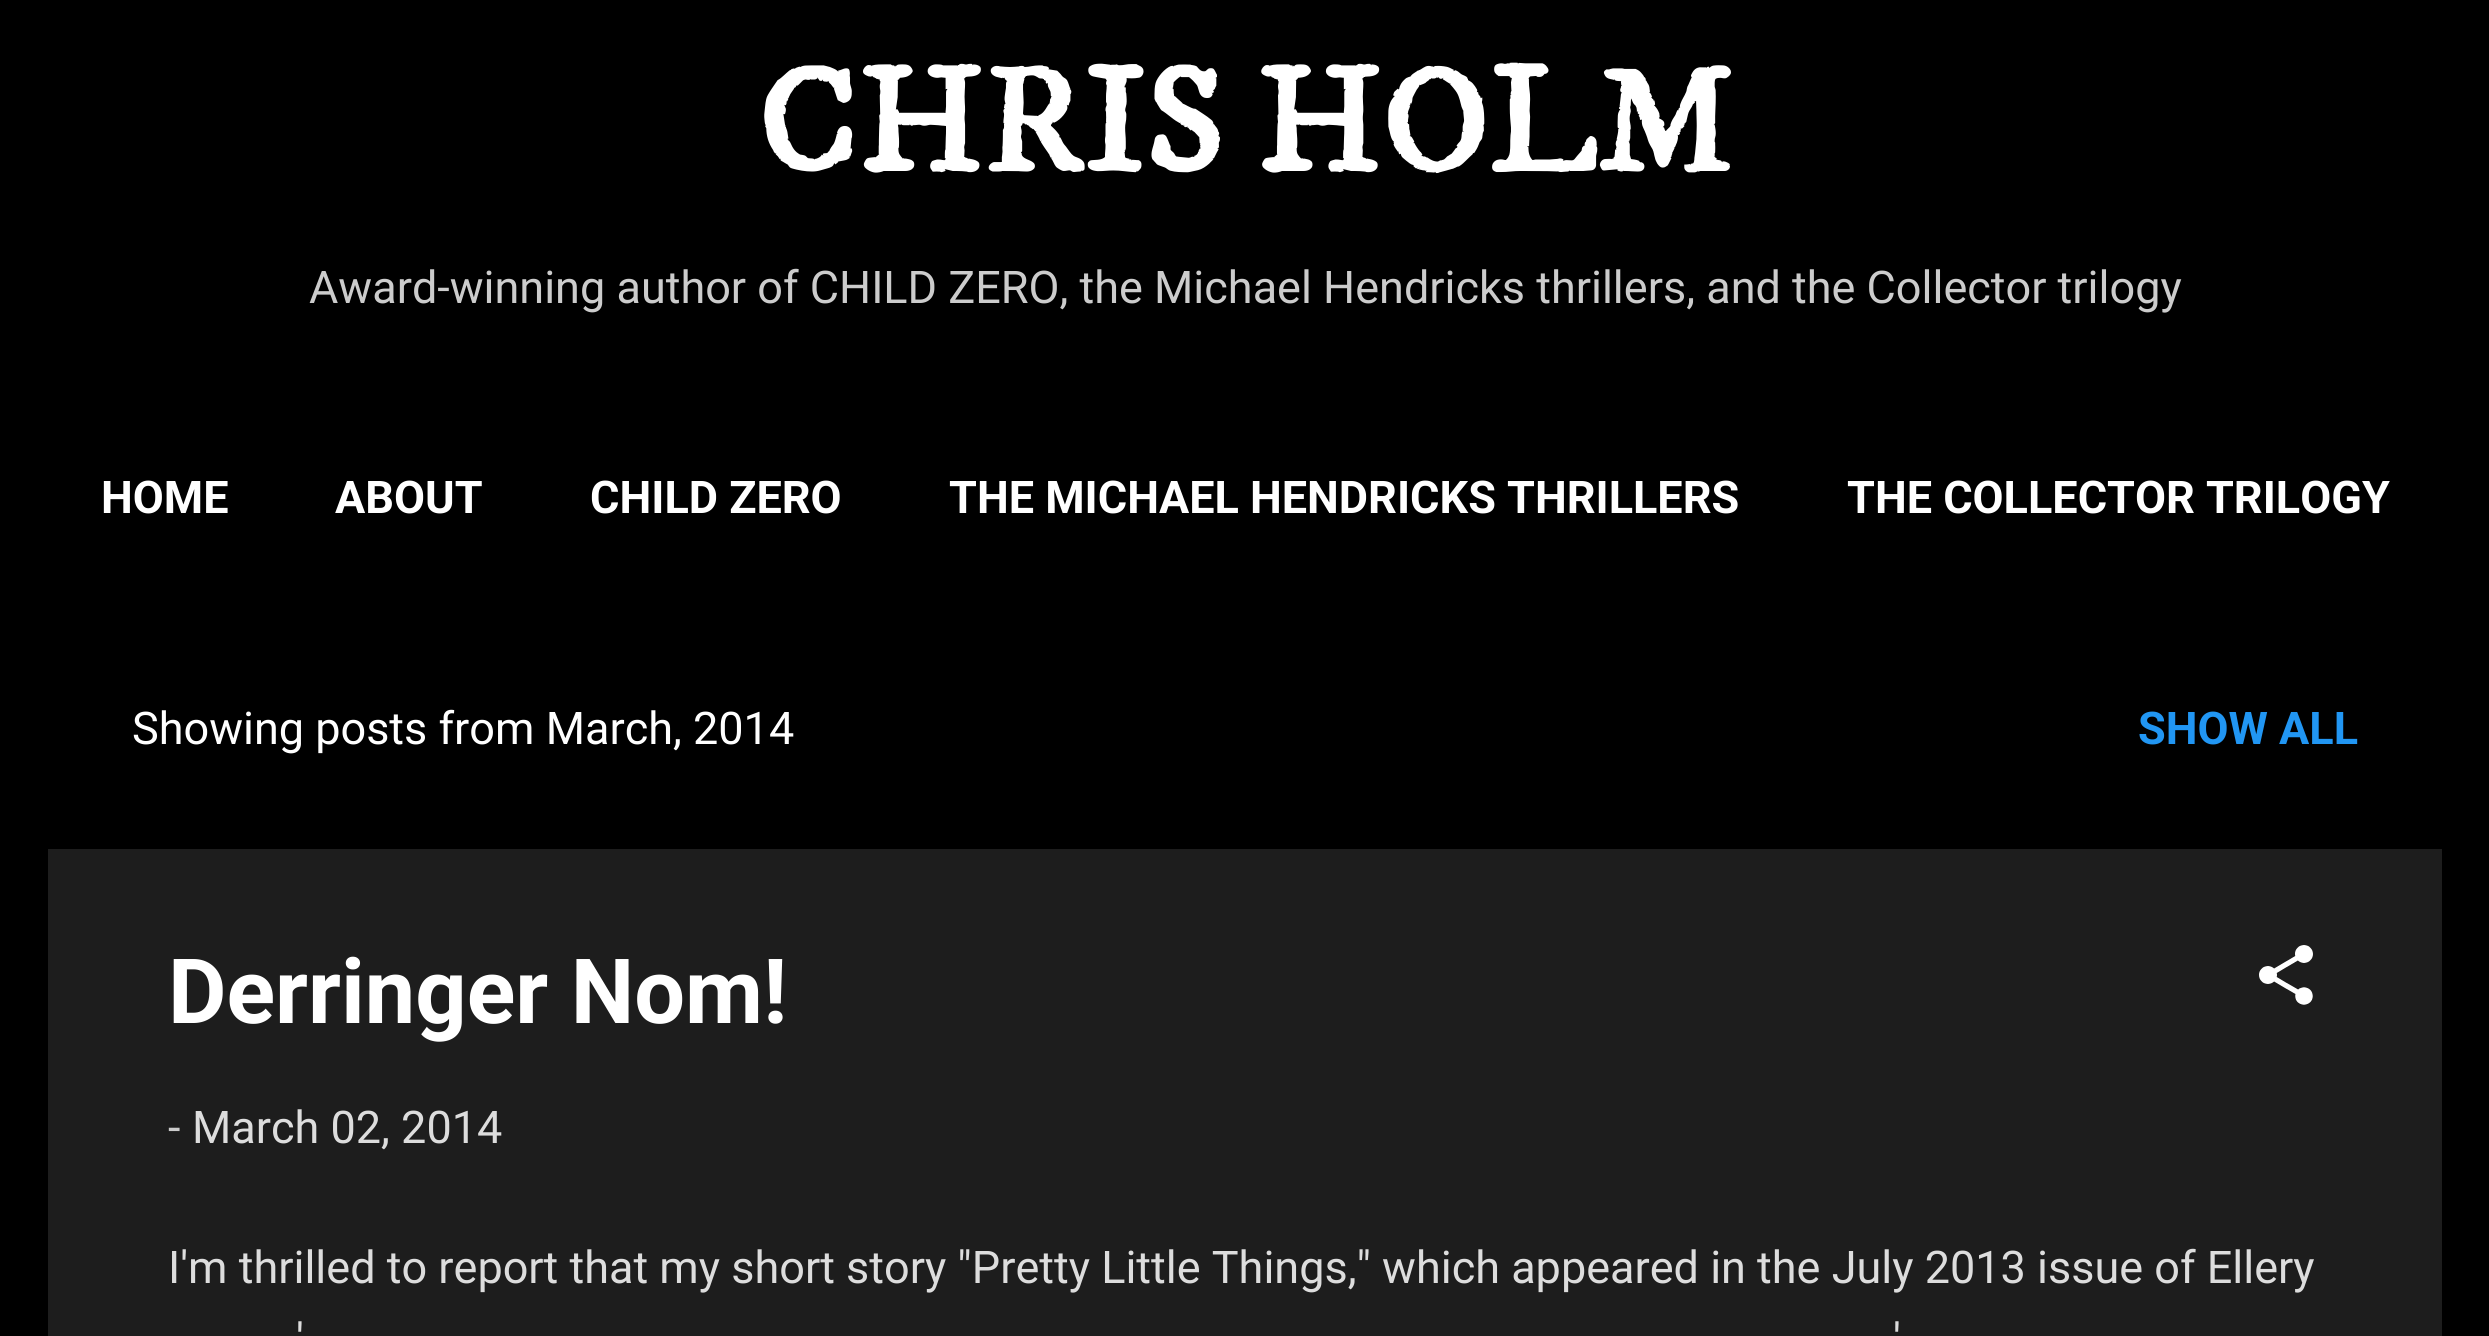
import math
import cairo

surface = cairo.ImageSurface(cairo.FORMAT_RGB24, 2489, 1336)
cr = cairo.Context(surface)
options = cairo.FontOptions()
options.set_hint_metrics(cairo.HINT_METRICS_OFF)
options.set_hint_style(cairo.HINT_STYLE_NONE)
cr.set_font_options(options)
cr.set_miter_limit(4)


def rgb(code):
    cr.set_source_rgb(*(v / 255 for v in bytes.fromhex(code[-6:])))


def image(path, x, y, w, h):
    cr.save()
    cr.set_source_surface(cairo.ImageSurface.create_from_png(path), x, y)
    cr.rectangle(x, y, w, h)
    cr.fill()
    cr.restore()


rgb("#000000")
cr.paint()
rgb("#1d1d1d")
cr.rectangle(48, 849, 2394, 487)
cr.fill()
image("img/1.png", 2259, 945, 54, 60)
cr.select_font_face("IM FELL DW Pica", cairo.FONT_SLANT_NORMAL, cairo.FONT_WEIGHT_BOLD)
cr.set_font_size(150)
rgb("#ffffff")
cr.move_to(757, 171)
cr.show_text("CHRIS HOLM")
cr.select_font_face("Roboto")
cr.set_font_size(45)
rgb("#cccccc")
cr.move_to(309, 303)
cr.show_text("Award-winning author of CHILD ZERO, the Michael Hendricks thrillers, and the Collector trilogy")
cr.select_font_face("Roboto", cairo.FONT_SLANT_NORMAL, cairo.FONT_WEIGHT_BOLD)
rgb("#ffffff")
for x, y, s in [
    (101, 513, "HOME"),
    (335, 513, "ABOUT"),
    (590, 513, "CHILD ZERO"),
    (949, 513, "THE MICHAEL HENDRICKS THRILLERS"),
    (1847, 513, "THE COLLECTOR TRILOGY"),
]:
    cr.move_to(x, y)
    cr.show_text(s)
cr.select_font_face("Roboto")
cr.move_to(132, 744)
cr.show_text("Showing posts from March, 2014")
cr.select_font_face("Roboto", cairo.FONT_SLANT_NORMAL, cairo.FONT_WEIGHT_BOLD)
rgb("#2196f3")
cr.move_to(2138, 744)
cr.show_text("SHOW ALL")
cr.set_font_size(90)
rgb("#ffffff")
cr.move_to(168, 1023)
cr.show_text("Derringer Nom!")
cr.select_font_face("Roboto")
cr.set_font_size(45)
rgb("#cccccc")
cr.move_to(168, 1143)
cr.show_text("-")
rgb("#dddddd")
for x, y, s in [
    (192, 1143, "March 02, 2014"),
    (168, 1283, "I'm thrilled to report that my short story \"Pretty Little Things,\" which appeared in the July 2013 issue of Ellery"),
    (296, 1355, "'"),
    (1893, 1355, "'"),
]:
    cr.move_to(x, y)
    cr.show_text(s)
surface.write_to_png("page.png")
